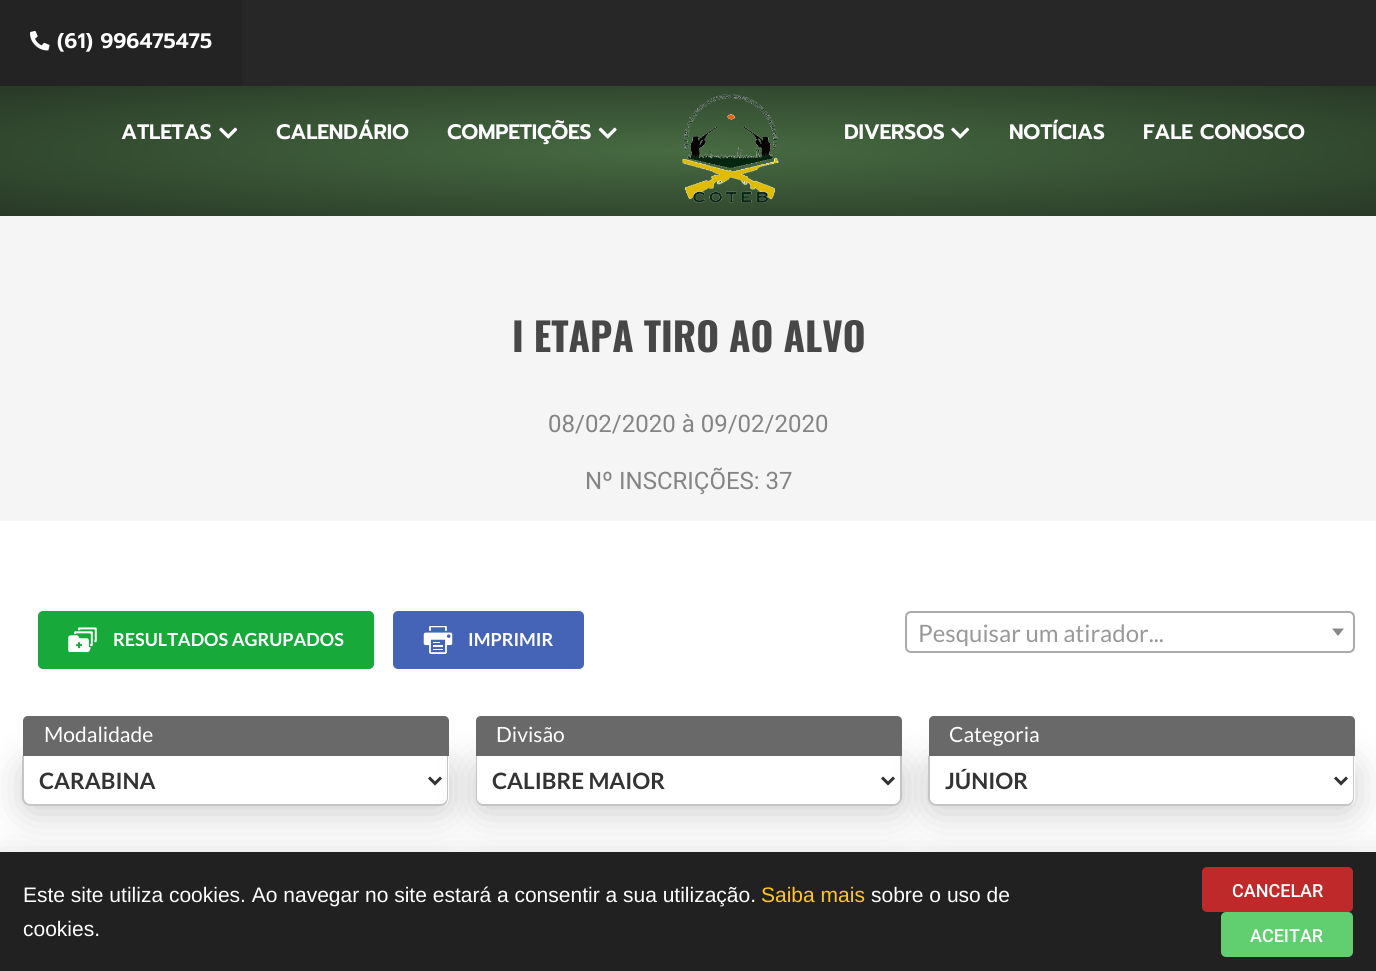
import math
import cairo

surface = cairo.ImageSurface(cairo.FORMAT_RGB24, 1376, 971)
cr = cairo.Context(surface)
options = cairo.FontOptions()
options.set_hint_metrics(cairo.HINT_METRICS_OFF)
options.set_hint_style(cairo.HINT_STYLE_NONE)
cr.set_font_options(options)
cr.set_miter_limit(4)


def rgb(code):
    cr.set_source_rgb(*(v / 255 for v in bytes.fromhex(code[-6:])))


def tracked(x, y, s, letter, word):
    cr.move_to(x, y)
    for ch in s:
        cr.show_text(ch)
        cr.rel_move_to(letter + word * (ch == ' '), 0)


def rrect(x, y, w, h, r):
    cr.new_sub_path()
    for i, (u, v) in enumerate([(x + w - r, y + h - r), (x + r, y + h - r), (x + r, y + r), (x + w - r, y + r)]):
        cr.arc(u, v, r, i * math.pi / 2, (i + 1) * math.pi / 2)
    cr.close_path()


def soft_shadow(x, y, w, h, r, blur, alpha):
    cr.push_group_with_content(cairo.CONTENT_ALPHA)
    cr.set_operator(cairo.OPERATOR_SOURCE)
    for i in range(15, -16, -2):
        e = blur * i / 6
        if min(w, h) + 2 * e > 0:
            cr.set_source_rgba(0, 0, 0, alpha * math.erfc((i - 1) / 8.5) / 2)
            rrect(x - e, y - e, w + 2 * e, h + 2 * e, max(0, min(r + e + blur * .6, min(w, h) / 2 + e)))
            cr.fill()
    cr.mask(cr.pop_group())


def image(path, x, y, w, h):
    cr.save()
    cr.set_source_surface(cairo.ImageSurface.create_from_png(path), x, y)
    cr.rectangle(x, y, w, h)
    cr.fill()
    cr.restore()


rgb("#ffffff")
cr.paint()
rgb("#272727")
cr.rectangle(242, 0, 1134, 86)
cr.fill()
rgb("#232323")
cr.rectangle(0, 0, 242, 86)
cr.fill()
image("img/1.png", 30, 31, 20, 20)
gradient = cairo.RadialGradient(0, 0, 0, 0, 0, 1)
gradient.set_matrix(cairo.Matrix(1 / 974, 0, 0, 1 / 92, -1 * 689 / 974, -1 * 151 / 92))
gradient.add_color_stop_rgba(0, 0.278, 0.42, 0.259, 1)
gradient.add_color_stop_rgba(1, 0.157, 0.224, 0.149, 1)
cr.set_source(gradient)
cr.rectangle(0, 86, 1376, 130)
cr.fill()
image("img/2.png", 219, 127, 19, 12)
image("img/3.png", 598, 127, 19, 12)
image("img/4.png", 682, 94, 97, 109)
image("img/5.png", 951, 127, 19, 12)
rgb("#f5f5f5")
cr.rectangle(0, 216, 1376, 305)
cr.fill()
rgb("#18a93b")
rrect(38, 611, 336, 58, 5)
cr.fill()
image("img/6.png", 68, 627, 29, 26)
rgb("#4564b7")
rrect(393, 611, 191, 58, 5)
cr.fill()
image("img/7.png", 423, 626, 30, 28)
rrect(906, 612, 448, 40, 5)
rgb("#aaaaaa")
cr.stroke()
rgb("#888888")
cr.new_path()
cr.move_to(1332, 628.5)
cr.line_to(1344, 628.5)
cr.line_to(1338, 636)
cr.close_path()
cr.fill()
rgb("#000000")
soft_shadow(23, 764, 426, 49, 8, 19, 0.2)
rgb("#696969")
cr.new_path()
cr.move_to(28, 716)
cr.line_to(444, 716)
cr.curve_to(447, 716, 449, 718, 449, 721)
cr.line_to(449, 756)
cr.line_to(23, 756)
cr.line_to(23, 721)
cr.curve_to(23, 718, 25, 716, 28, 716)
cr.close_path()
cr.fill()
rgb("#ffffff")
cr.new_path()
cr.move_to(23, 756)
cr.line_to(449, 756)
cr.line_to(449, 798)
cr.curve_to(449, 802.5, 445.5, 806, 441, 806)
cr.line_to(31, 806)
cr.curve_to(26.5, 806, 23, 802.5, 23, 798)
cr.close_path()
cr.fill()
rgb("#c5c5c5")
cr.set_fill_rule(cairo.FILL_RULE_EVEN_ODD)
cr.new_path()
cr.move_to(22, 756)
cr.line_to(448, 756)
cr.line_to(448, 798)
cr.curve_to(448, 802, 445, 806, 441, 806)
cr.line_to(30, 806)
cr.curve_to(26, 806, 22, 802, 22, 798)
cr.close_path()
cr.move_to(24, 756)
cr.line_to(447, 756)
cr.line_to(447, 798)
cr.curve_to(447, 801, 444, 804, 441, 804)
cr.line_to(30, 804)
cr.curve_to(27, 804, 24, 801, 24, 798)
cr.close_path()
cr.fill()
cr.new_path()
cr.move_to(429, 777.5)
cr.line_to(435, 783.5)
cr.line_to(441, 777.5)
rgb("#333333")
cr.set_line_width(3)
cr.stroke()
rgb("#000000")
soft_shadow(476, 764, 426, 49, 8, 19, 0.2)
rgb("#696969")
cr.new_path()
cr.move_to(481, 716)
cr.line_to(897, 716)
cr.curve_to(900, 716, 902, 718, 902, 721)
cr.line_to(902, 756)
cr.line_to(476, 756)
cr.line_to(476, 721)
cr.curve_to(476, 718, 478, 716, 481, 716)
cr.close_path()
cr.fill()
rgb("#ffffff")
cr.new_path()
cr.move_to(476, 756)
cr.line_to(902, 756)
cr.line_to(902, 798)
cr.curve_to(902, 802.5, 898.5, 806, 894, 806)
cr.line_to(484, 806)
cr.curve_to(479.5, 806, 476, 802.5, 476, 798)
cr.close_path()
cr.fill()
rgb("#c5c5c5")
cr.new_path()
cr.move_to(476, 756)
cr.line_to(902, 756)
cr.line_to(902, 798)
cr.curve_to(902, 802, 898, 806, 894, 806)
cr.line_to(483, 806)
cr.curve_to(479, 806, 476, 802, 476, 798)
cr.close_path()
cr.move_to(477, 756)
cr.line_to(900, 756)
cr.line_to(900, 798)
cr.curve_to(900, 801, 897, 804, 894, 804)
cr.line_to(483, 804)
cr.curve_to(480, 804, 477, 801, 477, 798)
cr.close_path()
cr.fill()
cr.new_path()
cr.move_to(882, 777.5)
cr.line_to(888, 783.5)
cr.line_to(894, 777.5)
rgb("#333333")
cr.stroke()
rgb("#000000")
soft_shadow(929, 764, 426, 49, 8, 19, 0.2)
rgb("#696969")
cr.new_path()
cr.move_to(934, 716)
cr.line_to(1350, 716)
cr.curve_to(1353, 716, 1355, 718, 1355, 721)
cr.line_to(1355, 756)
cr.line_to(929, 756)
cr.line_to(929, 721)
cr.curve_to(929, 718, 931, 716, 934, 716)
cr.close_path()
cr.fill()
rgb("#ffffff")
cr.new_path()
cr.move_to(929, 756)
cr.line_to(1355, 756)
cr.line_to(1355, 798)
cr.curve_to(1355, 802.5, 1351.5, 806, 1347, 806)
cr.line_to(937, 806)
cr.curve_to(932.5, 806, 929, 802.5, 929, 798)
cr.close_path()
cr.fill()
rgb("#c5c5c5")
cr.new_path()
cr.move_to(928, 756)
cr.line_to(1354, 756)
cr.line_to(1354, 798)
cr.curve_to(1354, 802, 1351, 806, 1347, 806)
cr.line_to(936, 806)
cr.curve_to(932, 806, 928, 802, 928, 798)
cr.close_path()
cr.move_to(930, 756)
cr.line_to(1353, 756)
cr.line_to(1353, 798)
cr.curve_to(1353, 801, 1350, 804, 1347, 804)
cr.line_to(936, 804)
cr.curve_to(933, 804, 930, 801, 930, 798)
cr.close_path()
cr.fill()
cr.new_path()
cr.move_to(1335, 777.5)
cr.line_to(1341, 783.5)
cr.line_to(1347, 777.5)
rgb("#333333")
cr.stroke()
rgb("#000000")
soft_shadow(-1, 860, 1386, 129, 0, 17, 0.2)
rgb("#212121")
cr.rectangle(0, 852, 1376, 119)
cr.fill()
rgb("#bf2929")
rrect(1202, 867, 151, 45, 5)
cr.fill()
rgb("#61ce70")
rrect(1221, 912, 132, 45, 5)
cr.fill()
cr.select_font_face("Prompt SemiBold")
cr.set_font_size(21)
rgb("#ffffff")
cr.move_to(57, 48)
cr.show_text("(61) 996475475")
for x, y, s in [
    (121, 139, "ATLETAS"),
    (276, 139, "CALENDÁRIO"),
    (447, 139, "COMPETIÇÕES"),
    (844, 139, "DIVERSOS"),
    (1009, 139, "NOTÍCIAS"),
    (1143, 139, "FALE CONOSCO"),
]:
    tracked(x, y, s, -0.25, 0)
cr.select_font_face("Oswald", cairo.FONT_SLANT_NORMAL, cairo.FONT_WEIGHT_BOLD)
cr.set_font_size(39)
rgb("#474747")
cr.move_to(512, 352)
cr.show_text("I ETAPA TIRO AO ALVO")
cr.select_font_face("Roboto")
cr.set_font_size(24)
rgb("#848484")
cr.move_to(548, 432)
cr.show_text("08/02/2020 à 09/02/2020")
cr.move_to(585, 489)
cr.show_text("Nº INSCRIÇÕES: 37")
cr.select_font_face("Lato", cairo.FONT_SLANT_NORMAL, cairo.FONT_WEIGHT_BOLD)
cr.set_font_size(18)
rgb("#ffffff")
cr.move_to(113, 646)
cr.show_text("RESULTADOS AGRUPADOS")
cr.move_to(468, 646)
cr.show_text("IMPRIMIR")
cr.select_font_face("Lato")
cr.set_font_size(24)
rgb("#999999")
cr.move_to(918, 642)
cr.show_text("Pesquisar um atirador...")
cr.set_font_size(21)
rgb("#ffffff")
cr.move_to(44, 742)
cr.show_text("Modalidade")
cr.select_font_face("Lato", cairo.FONT_SLANT_NORMAL, cairo.FONT_WEIGHT_BOLD)
cr.set_font_size(22.5)
rgb("#333333")
cr.move_to(39, 789)
cr.show_text("CARABINA")
cr.select_font_face("Lato")
cr.set_font_size(21)
rgb("#ffffff")
cr.move_to(496, 742)
cr.show_text("Divisão")
cr.select_font_face("Lato", cairo.FONT_SLANT_NORMAL, cairo.FONT_WEIGHT_BOLD)
cr.set_font_size(22.5)
rgb("#333333")
cr.move_to(492, 789)
cr.show_text("CALIBRE MAIOR")
cr.select_font_face("Lato")
cr.set_font_size(21)
rgb("#ffffff")
cr.move_to(949, 742)
cr.show_text("Categoria")
cr.select_font_face("Lato", cairo.FONT_SLANT_NORMAL, cairo.FONT_WEIGHT_BOLD)
cr.set_font_size(22.5)
rgb("#333333")
cr.move_to(945, 789)
cr.show_text("JÚNIOR")
cr.select_font_face("Liberation Sans")
cr.set_font_size(21)
rgb("#ffffff")
cr.move_to(23, 902)
cr.show_text("Este site utiliza cookies. Ao navegar no site estará a consentir a sua utilização.")
rgb("#fec726")
cr.move_to(761, 902)
cr.show_text("Saiba mais")
rgb("#ffffff")
cr.move_to(871, 902)
cr.show_text("sobre o uso de")
cr.move_to(23, 936)
cr.show_text("cookies.")
cr.select_font_face("Roboto Medium")
cr.set_font_size(18)
cr.move_to(1232, 897)
cr.show_text("CANCELAR")
cr.move_to(1250, 942)
cr.show_text("ACEITAR")
surface.write_to_png("page.png")
